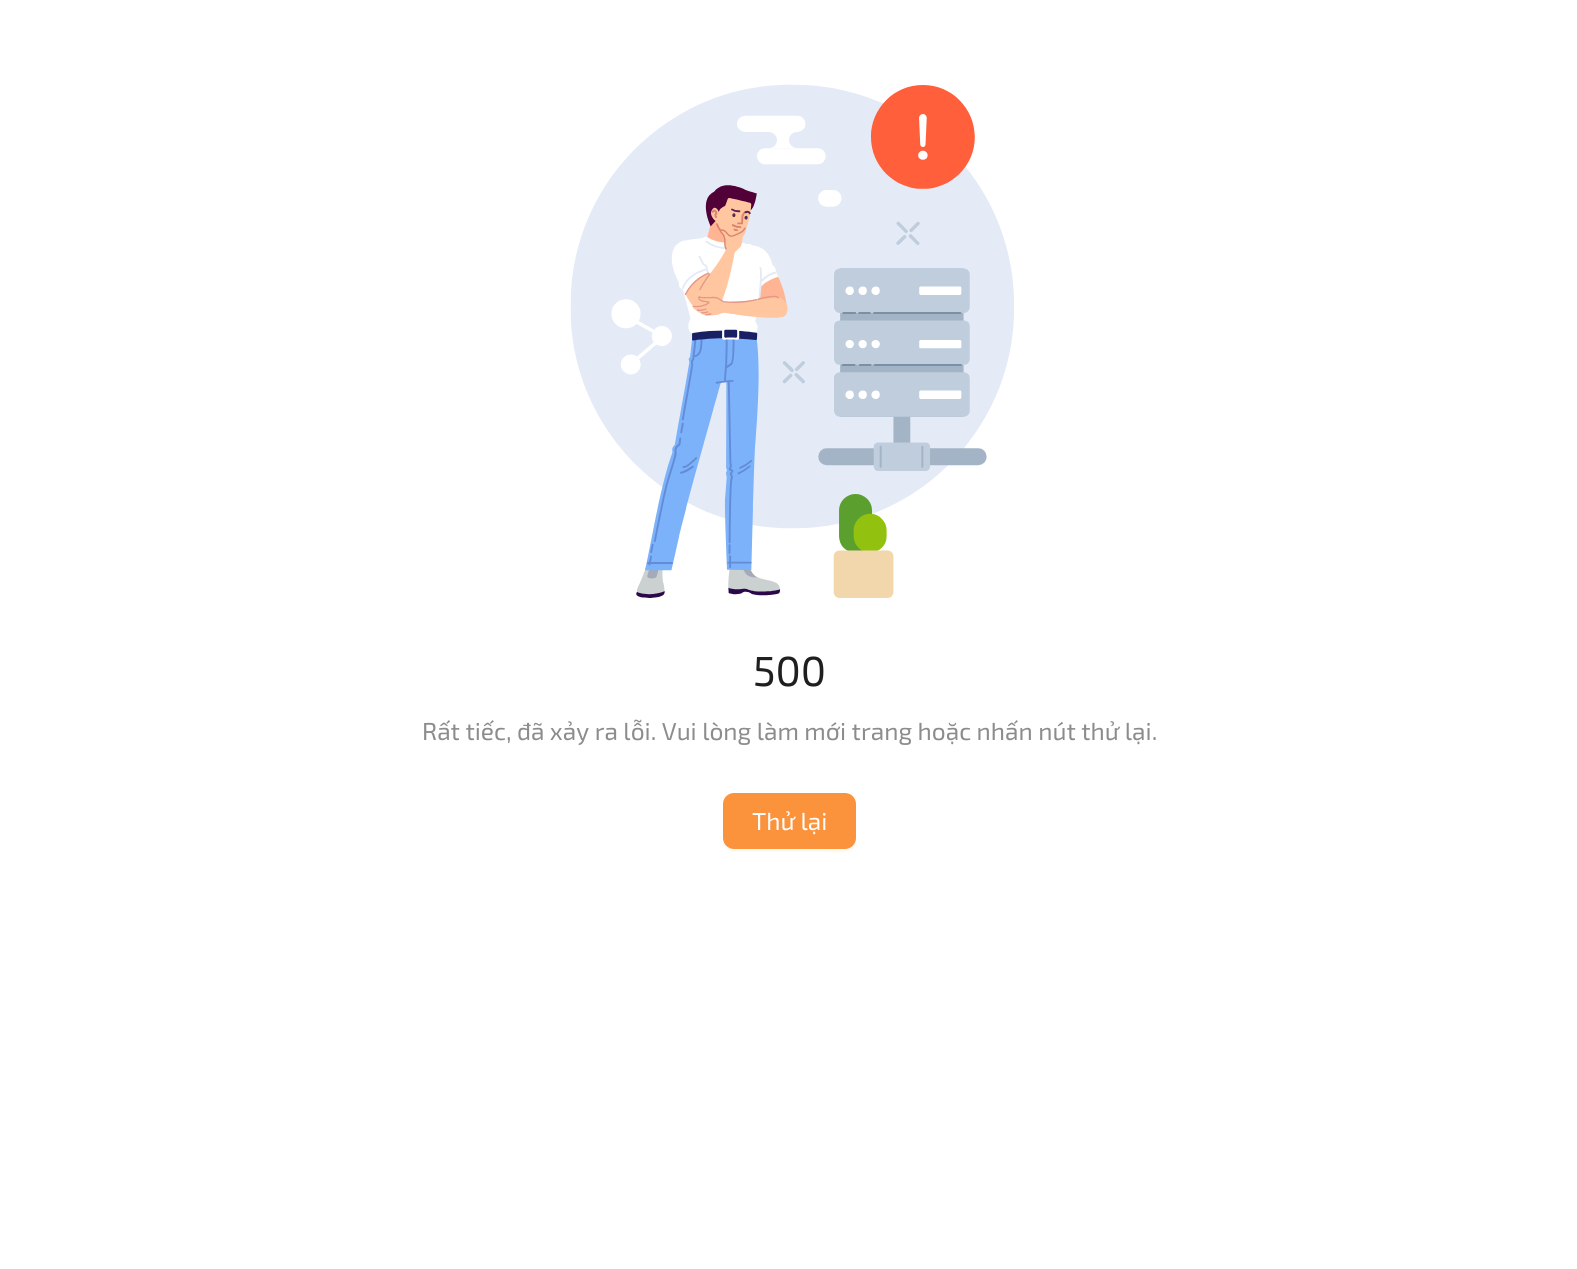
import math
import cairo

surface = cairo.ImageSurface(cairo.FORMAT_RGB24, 1577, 1269)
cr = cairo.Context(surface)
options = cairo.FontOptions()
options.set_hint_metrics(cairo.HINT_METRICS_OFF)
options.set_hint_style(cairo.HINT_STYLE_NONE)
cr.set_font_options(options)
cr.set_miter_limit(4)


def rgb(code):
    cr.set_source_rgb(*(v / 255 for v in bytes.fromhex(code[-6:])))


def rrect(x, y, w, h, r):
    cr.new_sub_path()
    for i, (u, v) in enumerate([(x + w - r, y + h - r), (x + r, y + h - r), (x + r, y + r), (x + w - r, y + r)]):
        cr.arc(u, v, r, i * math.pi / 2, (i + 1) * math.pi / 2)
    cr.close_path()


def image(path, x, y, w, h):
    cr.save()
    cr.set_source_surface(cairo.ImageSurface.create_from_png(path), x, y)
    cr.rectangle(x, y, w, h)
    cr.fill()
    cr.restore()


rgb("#ffffff")
cr.paint()
image("img/1.png", 570, 84, 444, 514)
rgb("#fff9f0")
cr.new_path()
cr.move_to(723, 841)
cr.line_to(724, 845)
cr.curve_to(726, 849, 730, 852, 734, 852)
cr.line_to(826, 852)
cr.curve_to(834, 852, 853, 856, 856, 843)
cr.line_to(856, 805)
cr.line_to(856, 838)
cr.curve_to(856, 844, 851, 849, 845, 849)
cr.line_to(733, 849)
cr.curve_to(728, 849, 724, 845, 723, 841)
cr.close_path()
cr.fill()
rgb("#fb923c")
rrect(723, 793, 133, 56, 11)
cr.fill()
cr.select_font_face("Exo 2")
cr.set_font_size(42)
rgb("#1f1f1f")
cr.move_to(753, 686)
cr.show_text("500")
cr.set_font_size(24.5)
rgb("#8c8c8c")
cr.move_to(422, 740)
cr.show_text("Rất tiếc, đã xảy ra lỗi. Vui lòng làm mới trang hoặc nhấn nút thử lại.")
rgb("#ffffff")
cr.move_to(752, 830)
cr.show_text("Thử lại")
surface.write_to_png("page.png")
